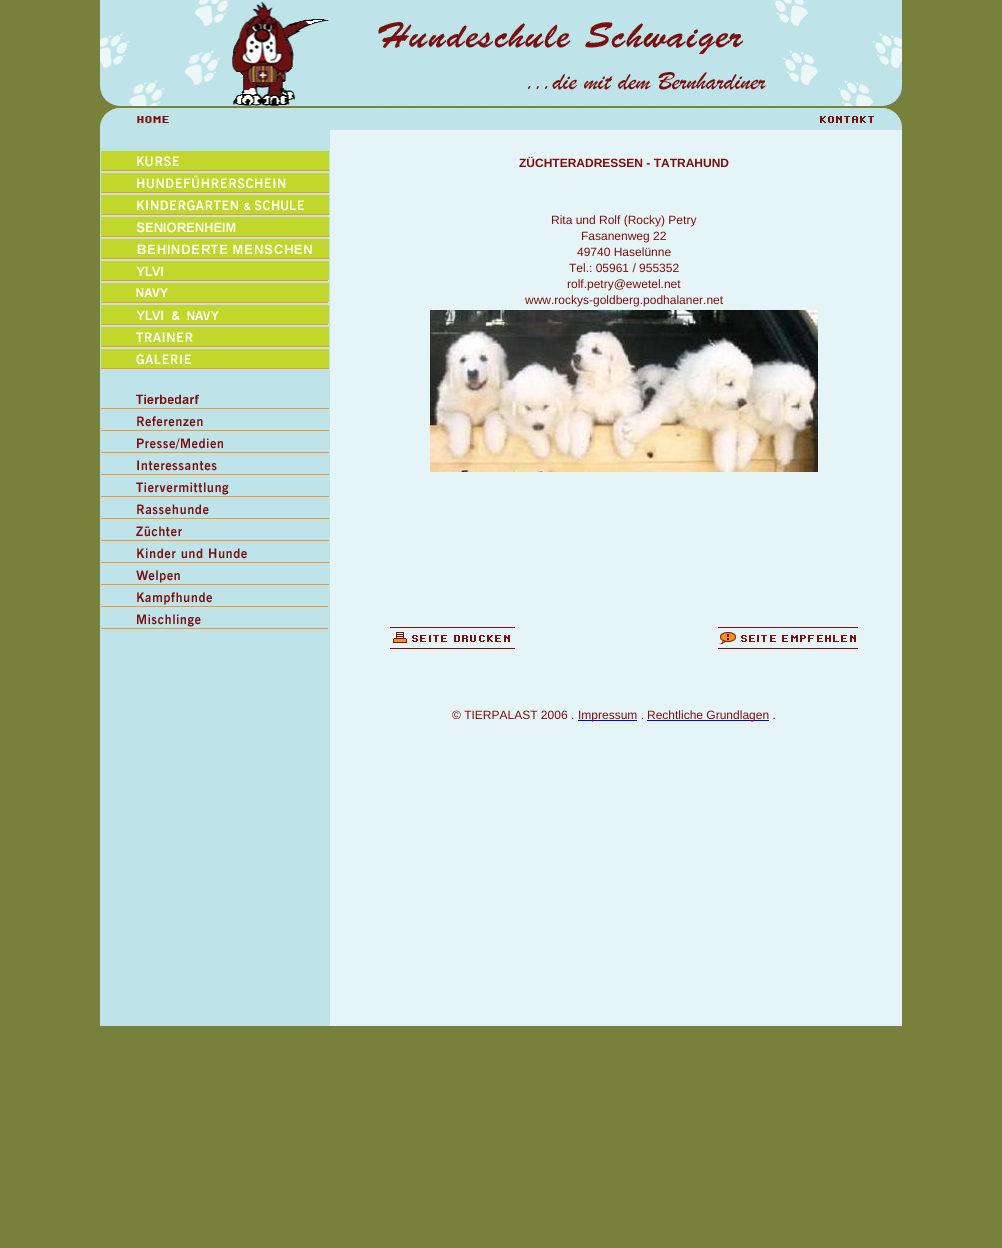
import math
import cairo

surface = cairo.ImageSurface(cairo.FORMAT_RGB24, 1002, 1248)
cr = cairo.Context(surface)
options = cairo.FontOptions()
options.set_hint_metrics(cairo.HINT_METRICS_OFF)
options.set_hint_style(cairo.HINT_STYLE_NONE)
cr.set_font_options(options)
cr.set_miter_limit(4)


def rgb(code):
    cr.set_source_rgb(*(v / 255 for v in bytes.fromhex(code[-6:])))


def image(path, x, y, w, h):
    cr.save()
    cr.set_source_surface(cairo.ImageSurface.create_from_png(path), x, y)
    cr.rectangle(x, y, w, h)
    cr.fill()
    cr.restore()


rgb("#78813b")
cr.paint()
image("img/1.png", 100, 0, 230, 106)
rgb("#bee4e9")
cr.rectangle(330, 0, 46, 106)
cr.fill()
image("img/2.png", 376, 0, 526, 107)
image("img/3.png", 100, 108, 230, 22)
cr.rectangle(330, 108, 46, 22)
cr.fill()
image("img/4.png", 376, 108, 526, 22)
cr.rectangle(100, 130, 230, 896)
cr.fill()
rgb("#e5f4f6")
cr.rectangle(330, 130, 572, 20)
cr.fill()
image("img/5.png", 101, 151, 228, 20)
image("img/6.png", 101, 173, 228, 20)
image("img/7.png", 101, 195, 228, 20)
image("img/8.png", 101, 217, 228, 20)
image("img/9.png", 101, 239, 228, 20)
image("img/10.png", 101, 261, 228, 20)
image("img/11.png", 101, 283, 228, 20)
image("img/12.png", 101, 305, 228, 20)
image("img/13.png", 101, 327, 228, 20)
image("img/14.png", 101, 349, 228, 20)
image("img/15.png", 101, 394, 228, 15)
image("img/16.png", 101, 416, 228, 15)
image("img/17.png", 101, 438, 228, 15)
image("img/18.png", 101, 460, 228, 15)
image("img/19.png", 101, 482, 228, 15)
image("img/20.png", 101, 504, 228, 15)
image("img/21.png", 101, 526, 228, 15)
image("img/22.png", 101, 548, 228, 15)
image("img/23.png", 101, 570, 228, 15)
image("img/24.png", 101, 592, 227, 15)
image("img/25.png", 101, 614, 227, 15)
cr.rectangle(330, 150, 572, 539)
cr.fill()
image("img/26.png", 430, 310, 388, 162)
image("img/27.png", 390, 627, 125, 22)
image("img/28.png", 718, 627, 140, 22)
for x, y, w, h, color in [
    (330, 689, 572, 337, "#e5f4f6"),
    (578, 720, 59, 1, "#0000ee"),
    (647, 720, 122, 1, "#0000ee"),
]:
    rgb(color)
    cr.rectangle(x, y, w, h)
    cr.fill()
cr.select_font_face("Liberation Sans", cairo.FONT_SLANT_NORMAL, cairo.FONT_WEIGHT_BOLD)
cr.set_font_size(12)
rgb("#7c0e0e")
cr.move_to(519, 167)
cr.show_text("ZÜCHTERADRESSEN - TATRAHUND")
cr.select_font_face("Liberation Sans")
for x, y, s in [
    (551, 224, "Rita und Rolf (Rocky) Petry"),
    (581, 240, "Fasanenweg 22"),
    (577, 256, "49740 Haselünne"),
    (569, 272, "Tel.: 05961 / 955352"),
    (567, 288, "rolf.petry@ewetel.net"),
    (525, 304, "www.rockys-goldberg.podhalaner.net"),
    (452, 719, "© TIERPALAST 2006 ."),
    (578, 719, "Impressum ."),
    (647, 719, "Rechtliche Grundlagen ."),
]:
    cr.move_to(x, y)
    cr.show_text(s)
surface.write_to_png("page.png")
